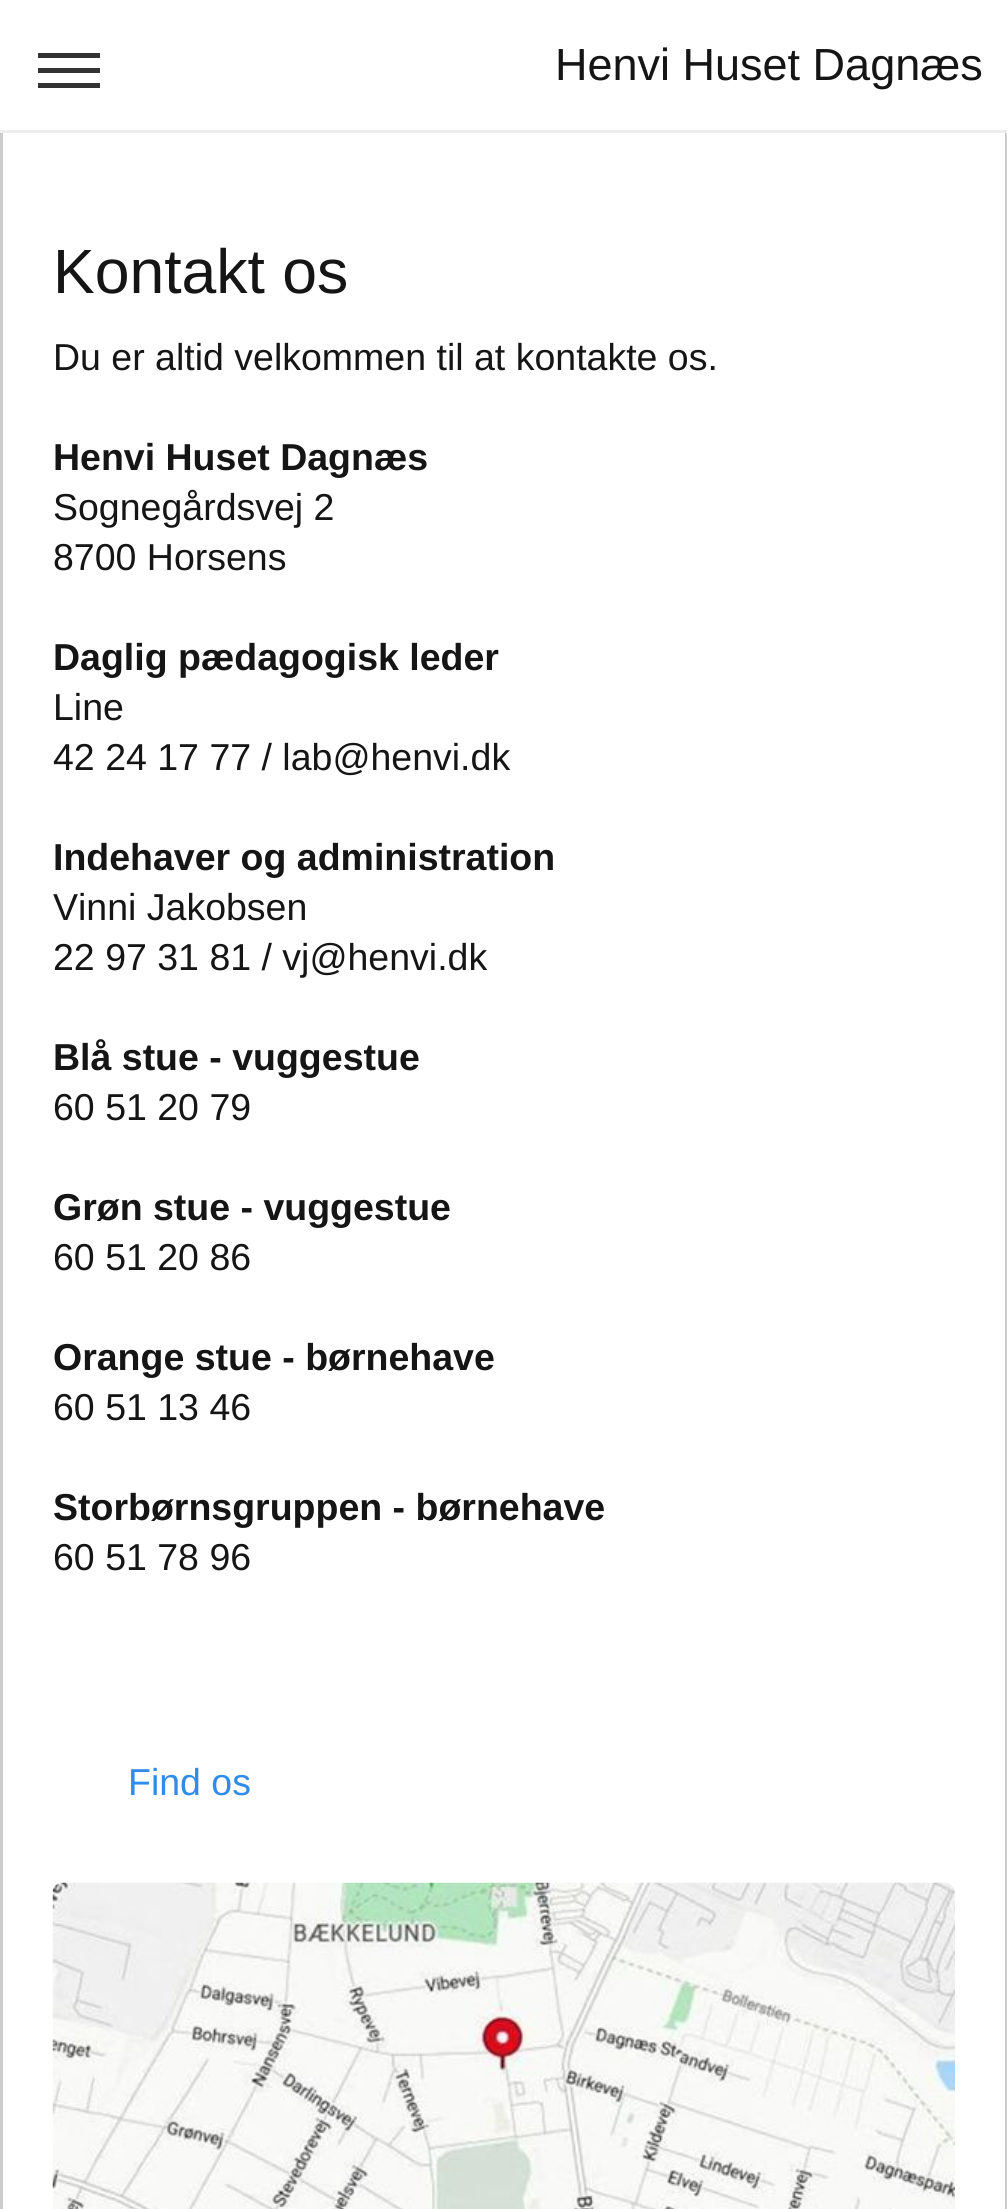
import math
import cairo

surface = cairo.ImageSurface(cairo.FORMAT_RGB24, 1007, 2209)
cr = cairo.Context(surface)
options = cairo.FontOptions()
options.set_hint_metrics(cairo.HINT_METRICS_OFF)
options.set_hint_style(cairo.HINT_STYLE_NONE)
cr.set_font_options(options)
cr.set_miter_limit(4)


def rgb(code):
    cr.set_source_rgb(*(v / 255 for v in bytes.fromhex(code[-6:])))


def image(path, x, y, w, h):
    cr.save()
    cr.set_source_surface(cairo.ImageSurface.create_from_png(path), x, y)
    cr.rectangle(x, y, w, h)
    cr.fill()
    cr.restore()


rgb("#ffffff")
cr.paint()
for x, y, w, h, color in [
    (0, 130, 1007, 3, "#ededed"),
    (38, 53, 62, 5, "#333333"),
    (38, 68, 62, 5, "#333333"),
    (38, 83, 62, 5, "#333333"),
    (1005, 133, 2, 2076, "#cccccc"),
    (0, 133, 3, 2076, "#cccccc"),
]:
    rgb(color)
    cr.rectangle(x, y, w, h)
    cr.fill()
image("img/1.png", 52, 1882, 903, 327)
cr.select_font_face("Liberation Sans")
cr.set_font_size(45)
rgb("#151515")
cr.move_to(555, 80)
cr.show_text("Henvi Huset Dagnæs")
cr.set_font_size(62.5)
cr.move_to(53, 293)
cr.show_text("Kontakt os")
cr.set_font_size(37.5)
cr.move_to(53, 370)
cr.show_text("Du er altid velkommen til at kontakte os.")
cr.select_font_face("Liberation Sans", cairo.FONT_SLANT_NORMAL, cairo.FONT_WEIGHT_BOLD)
cr.move_to(53, 470)
cr.show_text("Henvi Huset Dagnæs")
cr.select_font_face("Liberation Sans")
cr.move_to(53, 520)
cr.show_text("Sognegårdsvej 2")
cr.move_to(53, 570)
cr.show_text("8700 Horsens")
cr.select_font_face("Liberation Sans", cairo.FONT_SLANT_NORMAL, cairo.FONT_WEIGHT_BOLD)
cr.move_to(53, 670)
cr.show_text("Daglig pædagogisk leder")
cr.select_font_face("Liberation Sans")
cr.move_to(53, 720)
cr.show_text("Line")
cr.move_to(53, 770)
cr.show_text("42 24 17 77 / lab@henvi.dk")
cr.select_font_face("Liberation Sans", cairo.FONT_SLANT_NORMAL, cairo.FONT_WEIGHT_BOLD)
cr.move_to(53, 870)
cr.show_text("Indehaver og administration")
cr.select_font_face("Liberation Sans")
cr.move_to(53, 920)
cr.show_text("Vinni Jakobsen")
cr.move_to(53, 970)
cr.show_text("22 97 31 81 / vj@henvi.dk")
cr.select_font_face("Liberation Sans", cairo.FONT_SLANT_NORMAL, cairo.FONT_WEIGHT_BOLD)
cr.move_to(53, 1070)
cr.show_text("Blå stue - vuggestue")
cr.select_font_face("Liberation Sans")
cr.move_to(53, 1120)
cr.show_text("60 51 20 79")
cr.select_font_face("Liberation Sans", cairo.FONT_SLANT_NORMAL, cairo.FONT_WEIGHT_BOLD)
cr.move_to(53, 1220)
cr.show_text("Grøn stue - vuggestue")
cr.select_font_face("Liberation Sans")
cr.move_to(53, 1270)
cr.show_text("60 51 20 86")
cr.select_font_face("Liberation Sans", cairo.FONT_SLANT_NORMAL, cairo.FONT_WEIGHT_BOLD)
cr.move_to(53, 1370)
cr.show_text("Orange stue - børnehave")
cr.select_font_face("Liberation Sans")
cr.move_to(53, 1420)
cr.show_text("60 51 13 46")
cr.select_font_face("Liberation Sans", cairo.FONT_SLANT_NORMAL, cairo.FONT_WEIGHT_BOLD)
cr.move_to(53, 1520)
cr.show_text("Storbørnsgruppen - børnehave")
cr.select_font_face("Liberation Sans")
cr.move_to(53, 1570)
cr.show_text("60 51 78 96")
rgb("#318bea")
cr.move_to(128, 1795)
cr.show_text("Find os")
surface.write_to_png("page.png")
